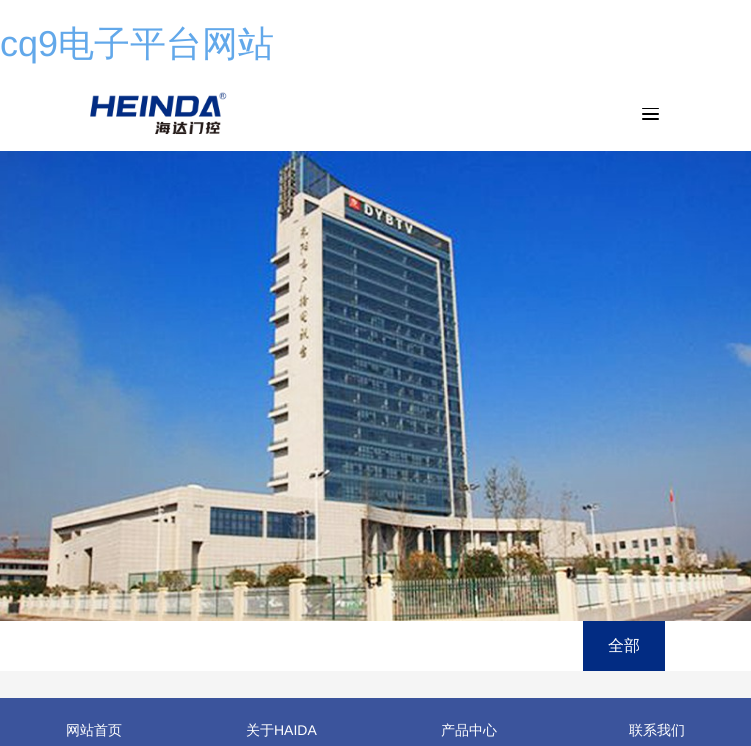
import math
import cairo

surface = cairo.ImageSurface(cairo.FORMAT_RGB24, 751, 746)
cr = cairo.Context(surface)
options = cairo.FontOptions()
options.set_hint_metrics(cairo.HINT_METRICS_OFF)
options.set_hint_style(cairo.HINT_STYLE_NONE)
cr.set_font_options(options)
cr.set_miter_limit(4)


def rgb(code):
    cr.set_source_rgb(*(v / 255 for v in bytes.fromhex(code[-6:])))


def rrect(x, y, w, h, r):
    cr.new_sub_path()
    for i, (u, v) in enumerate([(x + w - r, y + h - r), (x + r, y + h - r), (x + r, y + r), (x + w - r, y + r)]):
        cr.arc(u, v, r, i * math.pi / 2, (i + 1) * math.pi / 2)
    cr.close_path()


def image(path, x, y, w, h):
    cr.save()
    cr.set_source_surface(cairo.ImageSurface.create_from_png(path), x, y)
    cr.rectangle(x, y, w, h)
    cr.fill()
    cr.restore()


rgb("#ffffff")
cr.paint()
image("img/1.png", 90, 92, 137, 43)
rgb("#000000")
rrect(642, 108, 17, 1, 0.5)
cr.fill()
rrect(642, 113, 17, 2, 1)
cr.fill()
rrect(642, 118, 17, 2, 1)
cr.fill()
image("img/2.png", 0, 151, 751, 470)
for x, y, w, h, color in [
    (0, 671, 751, 27, "#f5f5f5"),
    (583, 621, 82, 50, "#022c83"),
    (0, 698, 751, 48, "#3b549c"),
]:
    rgb(color)
    cr.rectangle(x, y, w, h)
    cr.fill()
cr.select_font_face("Liberation Sans")
cr.set_font_size(36)
rgb("#62a8ea")
cr.move_to(0, 56)
cr.show_text("cq9")
cr.select_font_face("WenQuanYi Zen Hei Medium")
cr.move_to(58, 56)
cr.show_text("电子平台网站")
cr.set_font_size(16)
rgb("#ffffff")
cr.move_to(608, 651)
cr.show_text("全部")
cr.set_font_size(14)
cr.move_to(66, 735)
cr.show_text("网站首页")
cr.move_to(246, 735)
cr.show_text("关于")
cr.select_font_face("Liberation Sans")
cr.move_to(274, 735)
cr.show_text("HAIDA")
cr.select_font_face("WenQuanYi Zen Hei Medium")
cr.move_to(441, 735)
cr.show_text("产品中心")
cr.move_to(629, 735)
cr.show_text("联系我们")
surface.write_to_png("page.png")
